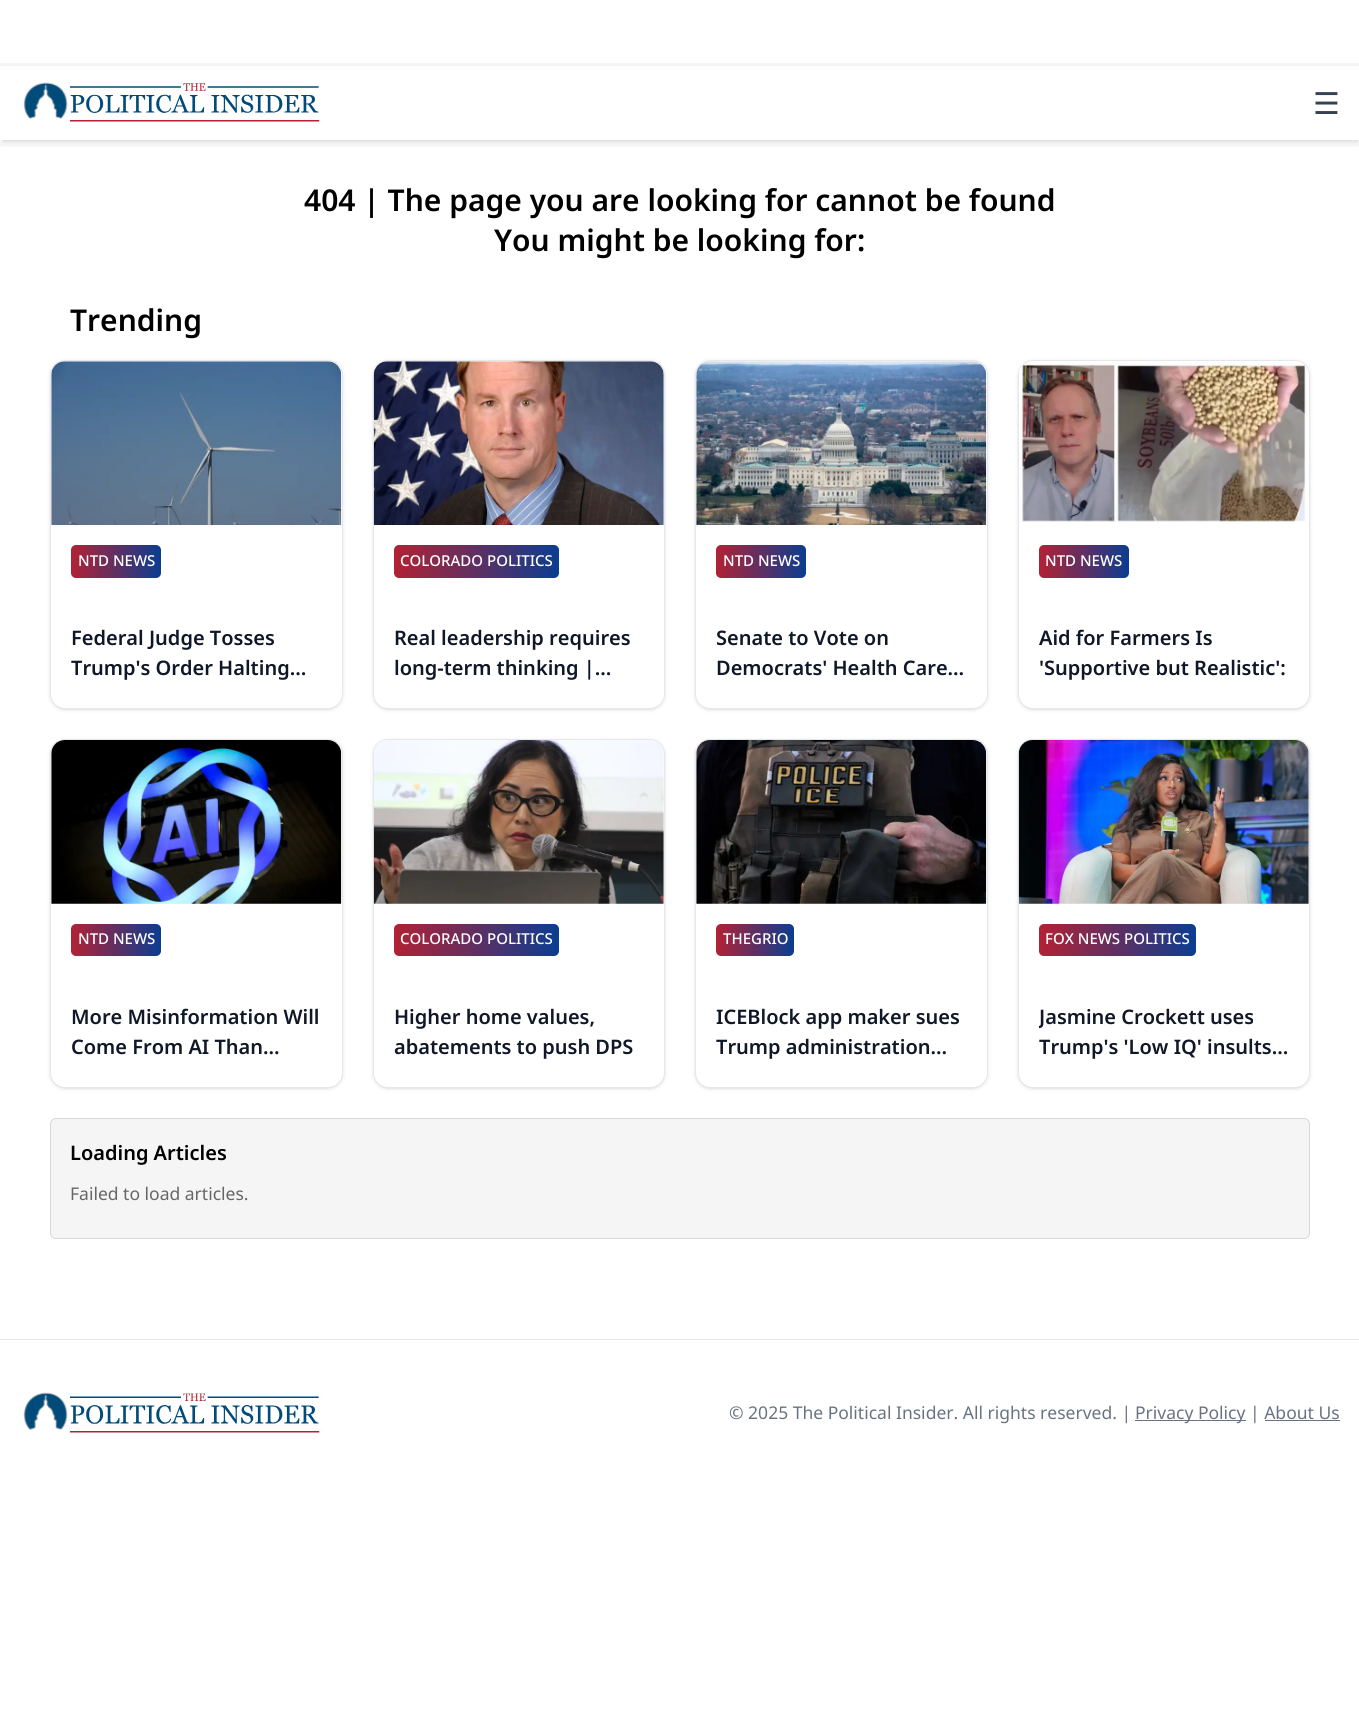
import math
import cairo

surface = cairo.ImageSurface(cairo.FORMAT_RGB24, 1359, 1716)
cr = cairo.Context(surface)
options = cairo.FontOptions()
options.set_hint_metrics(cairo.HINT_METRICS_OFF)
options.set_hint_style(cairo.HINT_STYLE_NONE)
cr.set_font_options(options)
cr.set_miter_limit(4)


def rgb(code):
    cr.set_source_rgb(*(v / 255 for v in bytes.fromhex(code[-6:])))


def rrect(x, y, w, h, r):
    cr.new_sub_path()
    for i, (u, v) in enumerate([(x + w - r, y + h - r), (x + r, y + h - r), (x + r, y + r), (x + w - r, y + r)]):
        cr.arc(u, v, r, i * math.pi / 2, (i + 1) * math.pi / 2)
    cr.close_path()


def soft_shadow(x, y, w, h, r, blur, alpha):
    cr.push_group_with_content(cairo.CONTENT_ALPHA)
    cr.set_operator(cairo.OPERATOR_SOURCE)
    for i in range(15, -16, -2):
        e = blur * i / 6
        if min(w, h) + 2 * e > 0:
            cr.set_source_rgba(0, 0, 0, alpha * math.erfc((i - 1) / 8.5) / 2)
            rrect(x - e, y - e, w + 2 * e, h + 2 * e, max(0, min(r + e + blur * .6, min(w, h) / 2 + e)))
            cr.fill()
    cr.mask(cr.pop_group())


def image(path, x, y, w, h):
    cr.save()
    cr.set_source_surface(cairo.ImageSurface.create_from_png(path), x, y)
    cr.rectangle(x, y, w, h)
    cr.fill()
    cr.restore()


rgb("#ffffff")
cr.paint()
cr.save()
cr.rectangle(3, 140, 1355, 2)
cr.clip()
rgb("#000000")
soft_shadow(3, 5, 1355, 135, 0, 2.5, 0.1)
cr.restore()
cr.save()
cr.rectangle(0, 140, 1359, 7)
cr.clip()
rgb("#000000")
soft_shadow(1, 6, 1358, 138, 0, 4, 0.1)
cr.restore()
rgb("#f3f4f6")
cr.rectangle(0, 63, 1359, 3)
cr.fill()
image("img/1.png", 23, 82, 297, 40)
rgb("#000000")
soft_shadow(51, 363, 290, 346, 14, 1, 0.1)
soft_shadow(50, 361, 293, 349, 15, 2, 0.1)
rgb("#ffffff")
rrect(50.5, 360.5, 292, 348, 14.5)
cr.fill_preserve()
rgb("#e5e7eb")
cr.set_line_width(1)
cr.stroke()
image("img/2.png", 51, 361, 291, 164)
gradient = cairo.LinearGradient(71, 561, 161, 561)
gradient.add_color_stop_rgba(0, 0.698, 0.133, 0.204, 1)
gradient.add_color_stop_rgba(1, 0.043, 0.239, 0.569, 1)
cr.set_source(gradient)
rrect(71, 545, 90, 33, 5)
cr.fill()
rgb("#000000")
soft_shadow(374, 363, 290, 346, 14, 1, 0.1)
soft_shadow(373, 361, 292, 349, 15, 2, 0.1)
rgb("#ffffff")
rrect(373.5, 360.5, 291, 348, 14.5)
cr.fill_preserve()
rgb("#e5e7eb")
cr.stroke()
image("img/3.png", 373, 361, 291, 164)
gradient = cairo.LinearGradient(394, 561, 559, 561)
gradient.add_color_stop_rgba(0, 0.698, 0.133, 0.204, 1)
gradient.add_color_stop_rgba(1, 0.043, 0.239, 0.569, 1)
cr.set_source(gradient)
rrect(394, 545, 165, 33, 5)
cr.fill()
rgb("#000000")
soft_shadow(696, 363, 290, 346, 14, 1, 0.1)
soft_shadow(695, 361, 293, 349, 15, 2, 0.1)
rgb("#ffffff")
rrect(695.5, 360.5, 292, 348, 14.5)
cr.fill_preserve()
rgb("#e5e7eb")
cr.stroke()
image("img/4.png", 696, 361, 291, 164)
gradient = cairo.LinearGradient(716, 561, 806, 561)
gradient.add_color_stop_rgba(0, 0.698, 0.133, 0.204, 1)
gradient.add_color_stop_rgba(1, 0.043, 0.239, 0.569, 1)
cr.set_source(gradient)
rrect(716, 545, 90, 33, 5)
cr.fill()
rgb("#000000")
soft_shadow(1019, 363, 290, 346, 14, 1, 0.1)
soft_shadow(1018, 361, 292, 349, 15, 2, 0.1)
rgb("#ffffff")
rrect(1018.5, 360.5, 291, 348, 14.5)
cr.fill_preserve()
rgb("#e5e7eb")
cr.stroke()
image("img/5.png", 1019, 362, 288, 161)
gradient = cairo.LinearGradient(1039, 561, 1129, 561)
gradient.add_color_stop_rgba(0, 0.698, 0.133, 0.204, 1)
gradient.add_color_stop_rgba(1, 0.043, 0.239, 0.569, 1)
cr.set_source(gradient)
rrect(1039, 545, 90, 33, 5)
cr.fill()
rgb("#000000")
soft_shadow(51, 741, 290, 347, 14, 1, 0.1)
soft_shadow(50, 740, 293, 349, 15, 2, 0.1)
rgb("#ffffff")
rrect(50.5, 739.5, 292, 348, 14.5)
cr.fill_preserve()
rgb("#e5e7eb")
cr.stroke()
image("img/6.png", 51, 740, 291, 164)
gradient = cairo.LinearGradient(71, 940, 161, 940)
gradient.add_color_stop_rgba(0, 0.698, 0.133, 0.204, 1)
gradient.add_color_stop_rgba(1, 0.043, 0.239, 0.569, 1)
cr.set_source(gradient)
rrect(71, 924, 90, 32, 5)
cr.fill()
rgb("#000000")
soft_shadow(374, 741, 290, 347, 14, 1, 0.1)
soft_shadow(373, 740, 292, 349, 15, 2, 0.1)
rgb("#ffffff")
rrect(373.5, 739.5, 291, 348, 14.5)
cr.fill_preserve()
rgb("#e5e7eb")
cr.stroke()
image("img/7.png", 373, 740, 291, 164)
gradient = cairo.LinearGradient(394, 940, 559, 940)
gradient.add_color_stop_rgba(0, 0.698, 0.133, 0.204, 1)
gradient.add_color_stop_rgba(1, 0.043, 0.239, 0.569, 1)
cr.set_source(gradient)
rrect(394, 924, 165, 32, 5)
cr.fill()
rgb("#000000")
soft_shadow(696, 741, 290, 347, 14, 1, 0.1)
soft_shadow(695, 740, 293, 349, 15, 2, 0.1)
rgb("#ffffff")
rrect(695.5, 739.5, 292, 348, 14.5)
cr.fill_preserve()
rgb("#e5e7eb")
cr.stroke()
image("img/8.png", 696, 740, 291, 164)
gradient = cairo.LinearGradient(716, 940, 794, 940)
gradient.add_color_stop_rgba(0, 0.698, 0.133, 0.204, 1)
gradient.add_color_stop_rgba(1, 0.043, 0.239, 0.569, 1)
cr.set_source(gradient)
rrect(716, 924, 78, 32, 5)
cr.fill()
rgb("#000000")
soft_shadow(1019, 741, 290, 347, 14, 1, 0.1)
soft_shadow(1018, 740, 292, 349, 15, 2, 0.1)
rgb("#ffffff")
rrect(1018.5, 739.5, 291, 348, 14.5)
cr.fill_preserve()
rgb("#e5e7eb")
cr.stroke()
image("img/9.png", 1018, 740, 291, 164)
gradient = cairo.LinearGradient(1039, 940, 1196, 940)
gradient.add_color_stop_rgba(0, 0.698, 0.133, 0.204, 1)
gradient.add_color_stop_rgba(1, 0.043, 0.239, 0.569, 1)
cr.set_source(gradient)
rrect(1039, 924, 157, 32, 5)
cr.fill()
rgb("#f5f5f5")
rrect(50.5, 1118.5, 1259, 120, 5.5)
cr.fill_preserve()
rgb("#d8d8d8")
cr.stroke()
rgb("#e5e7eb")
cr.rectangle(0, 1339, 1359, 1)
cr.fill()
image("img/10.png", 23, 1392, 297, 41)
rgb("#6a7282")
cr.rectangle(1135, 1420, 111, 1)
cr.fill()
cr.rectangle(1265, 1420, 75, 1)
cr.fill()
cr.select_font_face("DejaVu Sans")
cr.set_font_size(30)
rgb("#364153")
cr.move_to(1313, 114)
cr.show_text("☰")
cr.select_font_face("Noto Sans SemiBold")
rgb("#000000")
for x, y, s in [
    (304, 211, "404 | The page you are looking for cannot be found"),
    (494, 251, "You might be looking for:"),
    (70, 331, "Trending"),
]:
    cr.move_to(x, y)
    cr.show_text(s)
cr.select_font_face("Noto Sans Medium")
cr.set_font_size(15)
rgb("#ffffff")
cr.move_to(78, 566)
cr.show_text("NTD NEWS")
cr.select_font_face("Noto Sans SemiBold")
cr.set_font_size(20)
rgb("#101828")
cr.move_to(71, 645)
cr.show_text("Federal Judge Tosses")
cr.move_to(71, 675)
cr.show_text("Trump's Order Halting…")
cr.select_font_face("Noto Sans Medium")
cr.set_font_size(15)
rgb("#ffffff")
cr.move_to(400, 566)
cr.show_text("COLORADO POLITICS")
cr.select_font_face("Noto Sans SemiBold")
cr.set_font_size(20)
rgb("#101828")
cr.move_to(394, 645)
cr.show_text("Real leadership requires")
cr.move_to(394, 675)
cr.show_text("long-term thinking |…")
cr.select_font_face("Noto Sans Medium")
cr.set_font_size(15)
rgb("#ffffff")
cr.move_to(723, 566)
cr.show_text("NTD NEWS")
cr.select_font_face("Noto Sans SemiBold")
cr.set_font_size(20)
rgb("#101828")
cr.move_to(716, 645)
cr.show_text("Senate to Vote on")
cr.move_to(716, 675)
cr.show_text("Democrats' Health Care…")
cr.select_font_face("Noto Sans Medium")
cr.set_font_size(15)
rgb("#ffffff")
cr.move_to(1045, 566)
cr.show_text("NTD NEWS")
cr.select_font_face("Noto Sans SemiBold")
cr.set_font_size(20)
rgb("#101828")
cr.move_to(1039, 645)
cr.show_text("Aid for Farmers Is")
cr.move_to(1039, 675)
cr.show_text("'Supportive but Realistic':")
cr.select_font_face("Noto Sans Medium")
cr.set_font_size(15)
rgb("#ffffff")
cr.move_to(78, 944)
cr.show_text("NTD NEWS")
cr.select_font_face("Noto Sans SemiBold")
cr.set_font_size(20)
rgb("#101828")
cr.move_to(71, 1024)
cr.show_text("More Misinformation Will")
cr.move_to(71, 1054)
cr.show_text("Come From AI Than…")
cr.select_font_face("Noto Sans Medium")
cr.set_font_size(15)
rgb("#ffffff")
cr.move_to(400, 944)
cr.show_text("COLORADO POLITICS")
cr.select_font_face("Noto Sans SemiBold")
cr.set_font_size(20)
rgb("#101828")
cr.move_to(394, 1024)
cr.show_text("Higher home values,")
cr.move_to(394, 1054)
cr.show_text("abatements to push DPS")
cr.select_font_face("Noto Sans Medium")
cr.set_font_size(15)
rgb("#ffffff")
cr.move_to(723, 944)
cr.show_text("THEGRIO")
cr.select_font_face("Noto Sans SemiBold")
cr.set_font_size(20)
rgb("#101828")
cr.move_to(716, 1024)
cr.show_text("ICEBlock app maker sues")
cr.move_to(716, 1054)
cr.show_text("Trump administration…")
cr.select_font_face("Noto Sans Medium")
cr.set_font_size(15)
rgb("#ffffff")
cr.move_to(1045, 944)
cr.show_text("FOX NEWS POLITICS")
cr.save()
cr.rectangle(1039, 1001, 250, 60)
cr.clip()
cr.select_font_face("Noto Sans SemiBold")
cr.set_font_size(20)
rgb("#101828")
cr.move_to(1039, 1024)
cr.show_text("Jasmine Crockett uses")
cr.restore()
cr.select_font_face("Noto Sans SemiBold")
cr.set_font_size(20)
rgb("#101828")
cr.move_to(1039, 1054)
cr.show_text("Trump's 'Low IQ' insults…")
rgb("#000000")
cr.move_to(70, 1160)
cr.show_text("Loading Articles")
cr.select_font_face("Noto Sans")
cr.set_font_size(17.5)
rgb("#666666")
cr.move_to(70, 1200)
cr.show_text("Failed to load articles.")
rgb("#6a7282")
cr.move_to(729, 1419)
cr.show_text("© 2025 The Political Insider. All rights reserved. |")
cr.move_to(1135, 1419)
cr.show_text("Privacy Policy | About Us")
surface.write_to_png("page.png")
